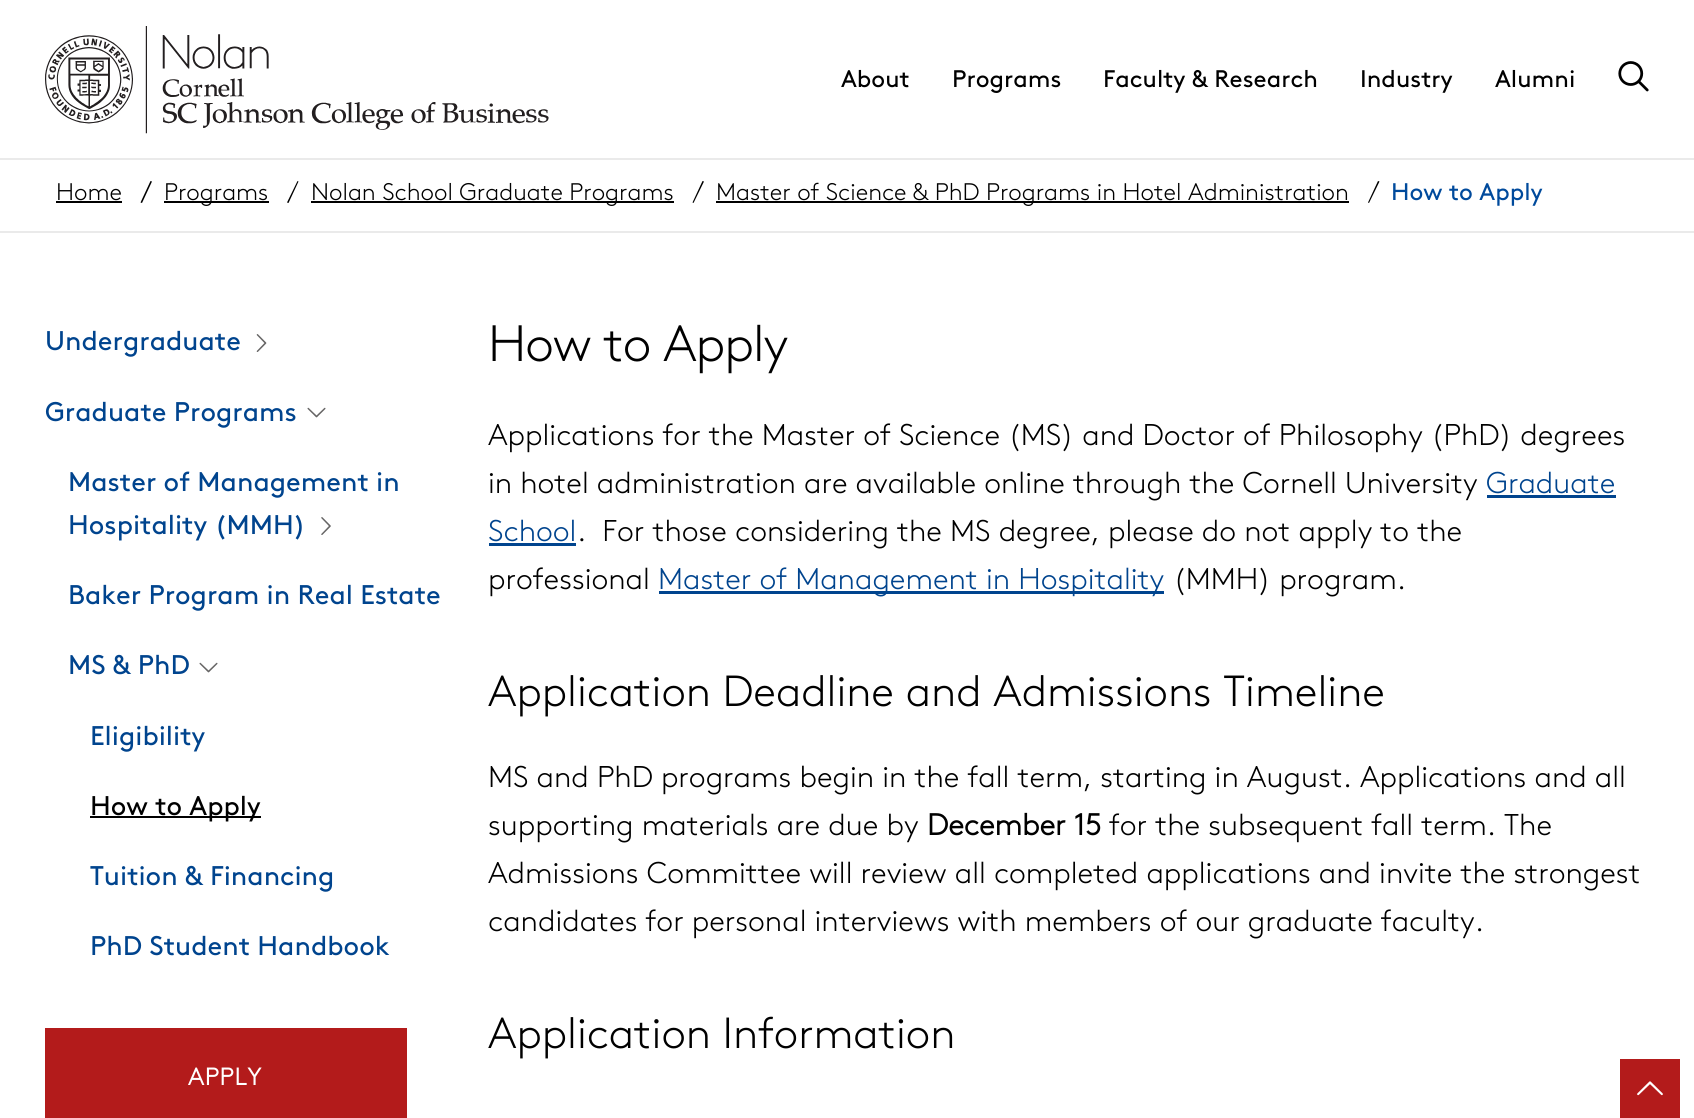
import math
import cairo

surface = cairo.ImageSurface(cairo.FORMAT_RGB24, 1694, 1118)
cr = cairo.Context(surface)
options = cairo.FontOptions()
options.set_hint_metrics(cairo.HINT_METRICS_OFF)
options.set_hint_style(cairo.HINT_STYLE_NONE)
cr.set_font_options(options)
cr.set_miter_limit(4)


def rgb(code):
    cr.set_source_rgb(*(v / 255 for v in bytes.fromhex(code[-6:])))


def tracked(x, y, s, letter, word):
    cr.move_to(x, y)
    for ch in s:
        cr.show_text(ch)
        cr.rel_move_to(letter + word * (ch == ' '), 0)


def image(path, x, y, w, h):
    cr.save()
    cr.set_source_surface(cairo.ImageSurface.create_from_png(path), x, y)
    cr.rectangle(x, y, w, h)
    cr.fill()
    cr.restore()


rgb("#ffffff")
cr.paint()
rgb("#eaeaea")
cr.rectangle(0, 158, 1694, 2)
cr.fill()
image("img/1.png", 45, 26, 504, 108)
image("img/2.png", 1618, 61, 31, 31)
cr.rectangle(0, 231, 1694, 2)
cr.fill()
rgb("#000000")
cr.rectangle(56, 201, 66, 2)
cr.fill()
cr.new_path()
cr.move_to(150.5, 181)
cr.line_to(152, 181.5)
cr.line_to(142, 203)
cr.line_to(140.5, 202.5)
cr.close_path()
cr.fill()
cr.rectangle(164, 201, 105, 2)
cr.fill()
cr.new_path()
cr.move_to(297.5, 181)
cr.line_to(298.5, 181.5)
cr.line_to(288.5, 203)
cr.line_to(287, 202.5)
cr.close_path()
cr.fill()
cr.rectangle(311, 201, 363, 2)
cr.fill()
cr.new_path()
cr.move_to(702.5, 181)
cr.line_to(704, 181.5)
cr.line_to(693.5, 203)
cr.line_to(692.5, 202.5)
cr.close_path()
cr.fill()
cr.rectangle(716, 201, 633, 2)
cr.fill()
cr.new_path()
cr.move_to(1378, 181)
cr.line_to(1379.5, 181.5)
cr.line_to(1369, 203)
cr.line_to(1368, 202.5)
cr.close_path()
cr.fill()
image("img/3.png", 256, 334, 11, 18)
image("img/4.png", 307, 407, 19, 11)
image("img/5.png", 321, 517, 10, 18)
image("img/4.png", 199, 662, 19, 11)
for x, y, w, h, color in [
    (90, 816, 171, 2, "#000000"),
    (45, 1028, 362, 90, "#b31b1b"),
    (1487, 495, 129, 3, "#00448e"),
    (489, 543, 87, 3, "#00448e"),
    (659, 591, 505, 3, "#00448e"),
    (1620, 1059, 60, 59, "#b31b1b"),
]:
    rgb(color)
    cr.rectangle(x, y, w, h)
    cr.fill()
image("img/6.png", 1637, 1081, 26, 15)
cr.select_font_face("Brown")
cr.set_font_size(24)
rgb("#000000")
for x, y, s in [
    (841, 87, "About"),
    (952, 87, "Programs"),
    (1103, 87, "Faculty & Research"),
    (1360, 87, "Industry"),
    (1495, 87, "Alumni"),
]:
    cr.move_to(x, y)
    cr.show_text(s)
cr.select_font_face("Brown Light")
for x, y, s in [
    (56, 200, "Home"),
    (164, 200, "Programs"),
    (311, 200, "Nolan School Graduate Programs"),
    (716, 200, "Master of Science & PhD Programs in Hotel Administration"),
]:
    cr.move_to(x, y)
    cr.show_text(s)
cr.select_font_face("Brown")
rgb("#004a9c")
cr.move_to(1391, 200)
cr.show_text("How to Apply")
cr.set_font_size(27)
rgb("#00448e")
for x, y, s in [
    (45, 350, "Undergraduate"),
    (45, 421, "Graduate Programs"),
    (68, 491, "Master of Management in"),
    (68, 534, "Hospitality (MMH)"),
    (68, 604, "Baker Program in Real Estate"),
    (68, 674, "MS & PhD"),
    (90, 745, "Eligibility"),
]:
    cr.move_to(x, y)
    cr.show_text(s)
rgb("#000000")
cr.move_to(90, 815)
cr.show_text("How to Apply")
rgb("#00448e")
cr.move_to(90, 885)
cr.show_text("Tuition & Financing")
cr.move_to(90, 955)
cr.show_text("PhD Student Handbook")
cr.select_font_face("Brown", cairo.FONT_SLANT_NORMAL, cairo.FONT_WEIGHT_BOLD)
cr.set_font_size(24)
rgb("#ffffff")
tracked(188, 1085, "APPLY", 1, 0)
cr.select_font_face("Brown Light")
cr.set_font_size(51)
rgb("#000000")
tracked(488, 361, "How to Apply", -1, 0)
cr.set_font_size(30)
cr.move_to(488, 445)
cr.show_text("Applications for the Master of Science (MS) and Doctor of Philosophy (PhD) degrees")
cr.move_to(488, 493)
cr.show_text("in hotel administration are available online through the Cornell University")
rgb("#00448e")
cr.move_to(1486, 493)
cr.show_text("Graduate")
cr.move_to(488, 541)
cr.show_text("School")
rgb("#000000")
cr.move_to(577, 541)
cr.show_text(".  For those considering the MS degree, please do not apply to the")
cr.move_to(488, 589)
cr.show_text("professional")
rgb("#00448e")
cr.move_to(658, 589)
cr.show_text("Master of Management in Hospitality")
rgb("#000000")
cr.move_to(1173, 589)
cr.show_text("(MMH) program.")
cr.set_font_size(43.5)
cr.move_to(488, 706)
cr.show_text("Application Deadline and Admissions Timeline")
cr.set_font_size(30)
cr.move_to(488, 787)
cr.show_text("MS and PhD programs begin in the fall term, starting in August. Applications and all")
cr.move_to(488, 835)
cr.show_text("supporting materials are due by")
cr.select_font_face("Brown", cairo.FONT_SLANT_NORMAL, cairo.FONT_WEIGHT_BOLD)
cr.move_to(927, 835)
cr.show_text("December 15")
cr.select_font_face("Brown Light")
for x, y, s in [
    (1109, 835, "for the subsequent fall term. The"),
    (488, 883, "Admissions Committee will review all completed applications and invite the strongest"),
    (488, 931, "candidates for personal interviews with members of our graduate faculty."),
]:
    cr.move_to(x, y)
    cr.show_text(s)
cr.set_font_size(43.5)
cr.move_to(488, 1048)
cr.show_text("Application Information")
surface.write_to_png("page.png")
